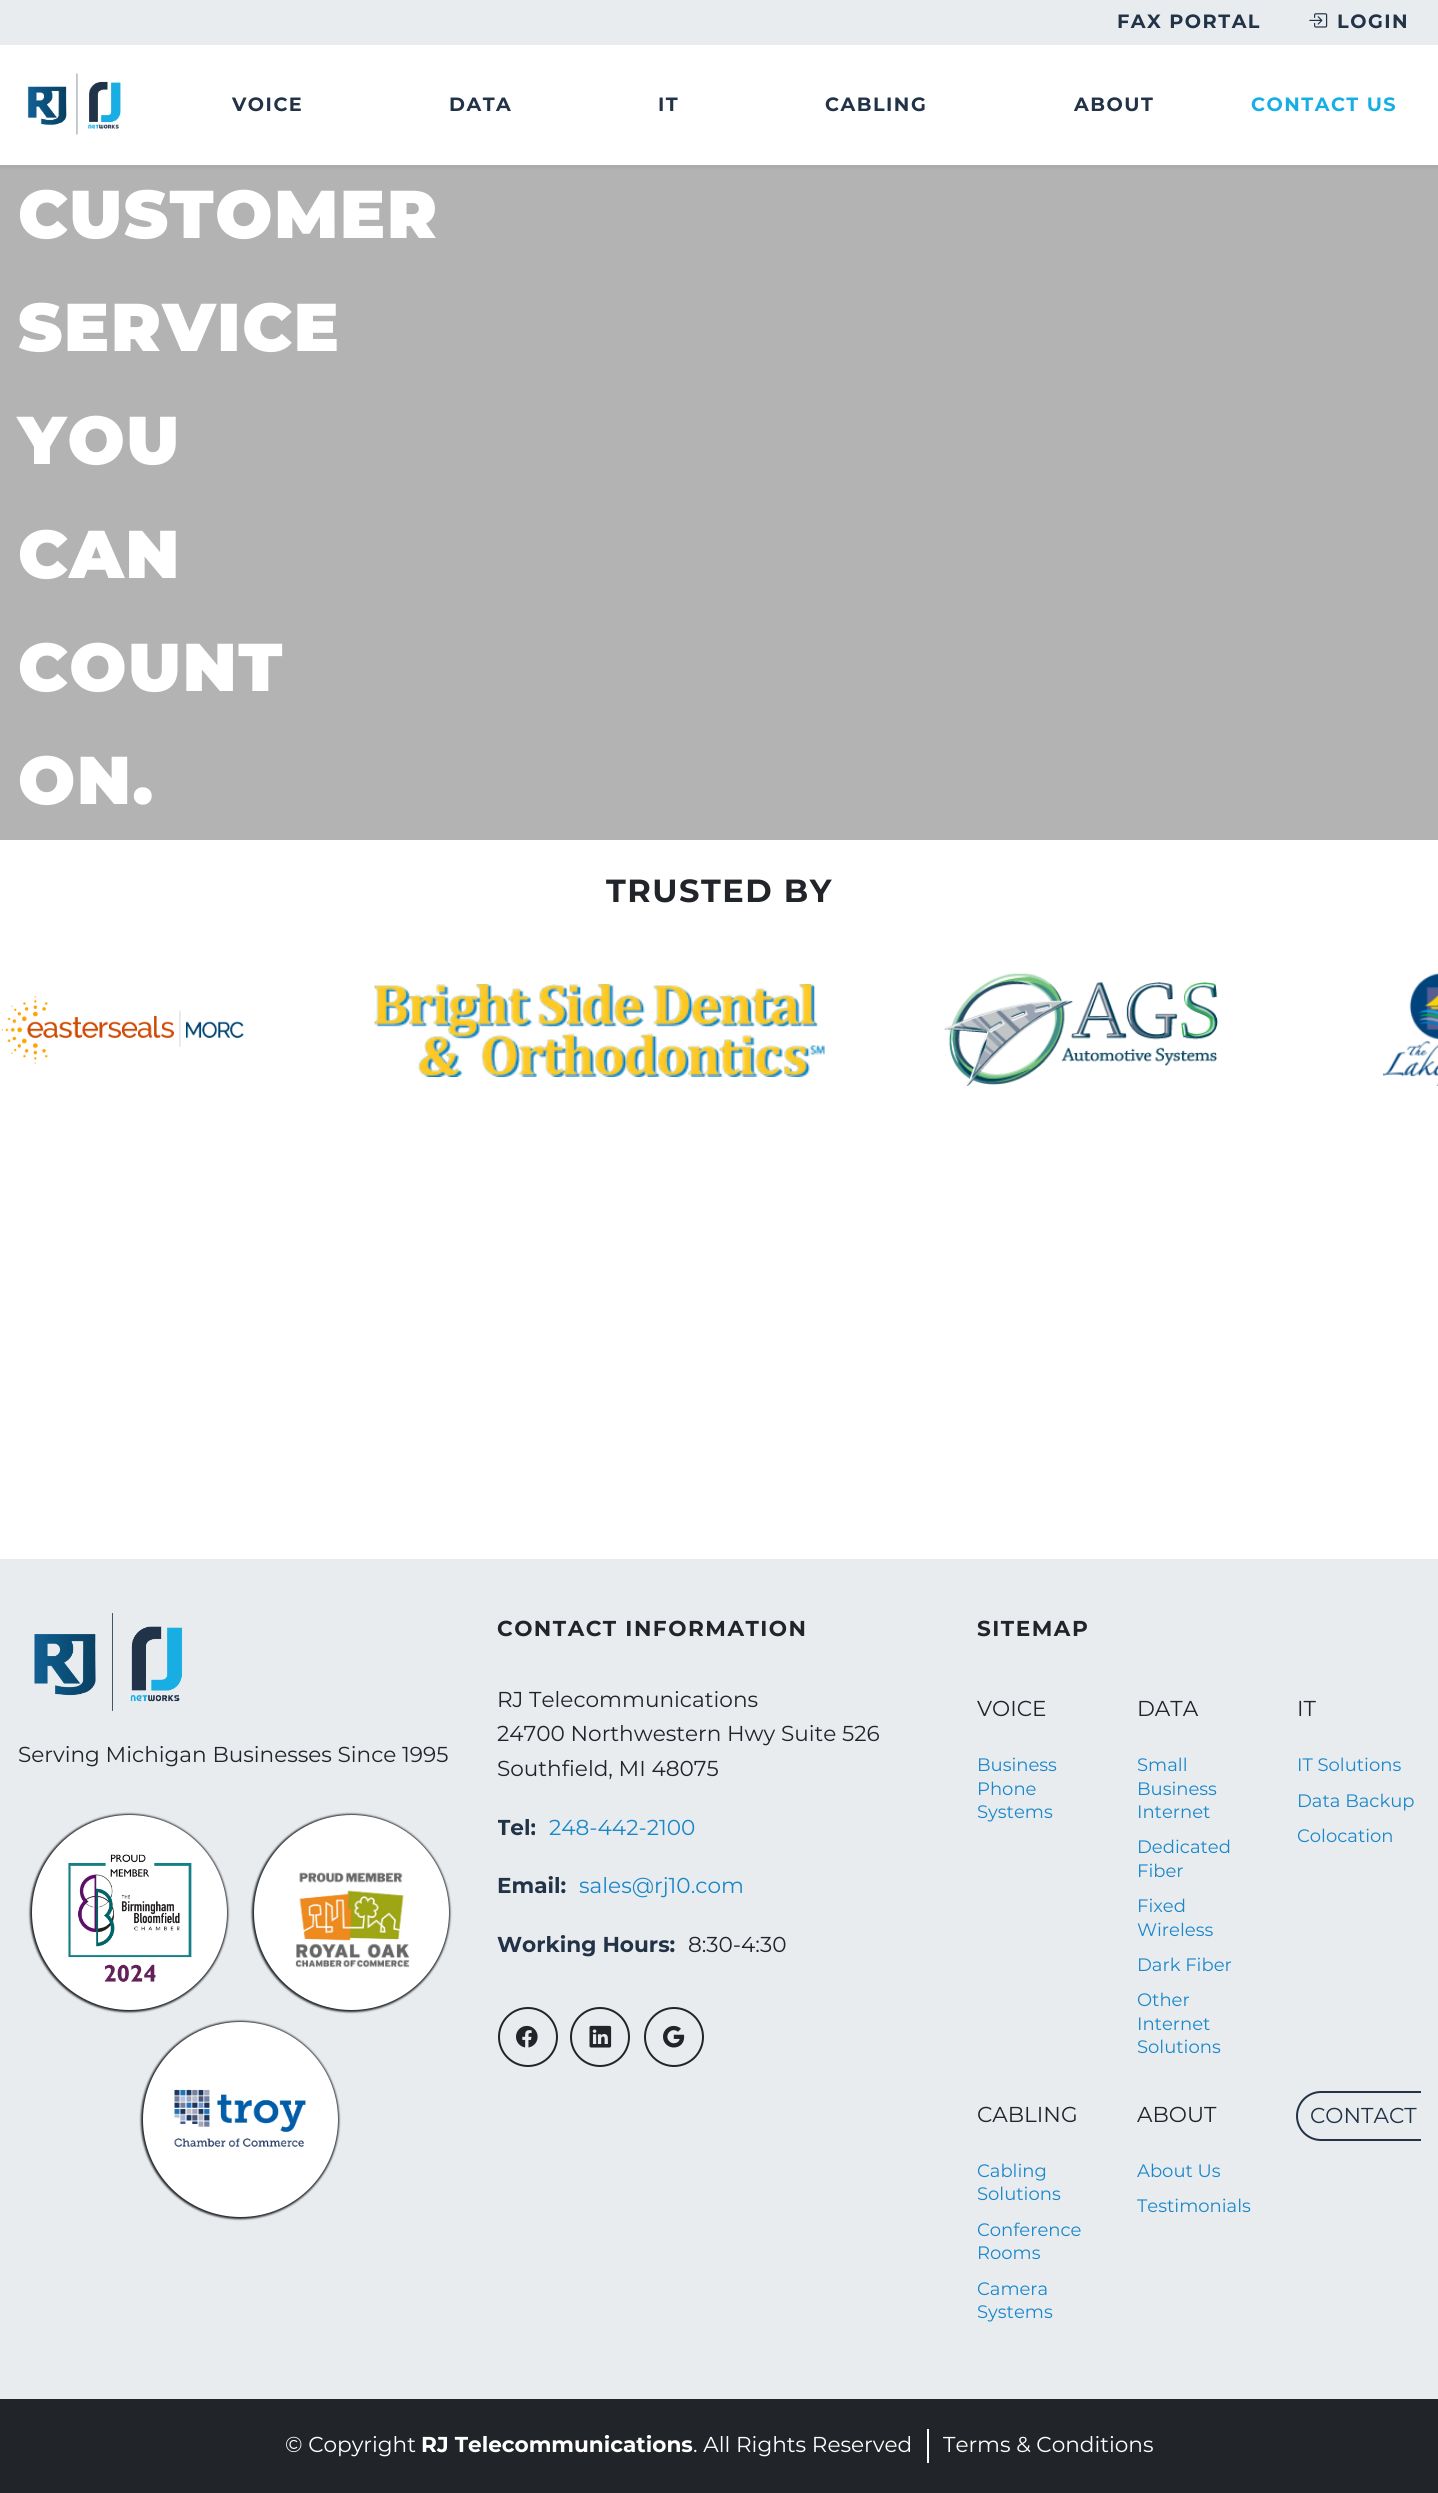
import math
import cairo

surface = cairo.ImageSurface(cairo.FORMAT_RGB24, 1438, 2493)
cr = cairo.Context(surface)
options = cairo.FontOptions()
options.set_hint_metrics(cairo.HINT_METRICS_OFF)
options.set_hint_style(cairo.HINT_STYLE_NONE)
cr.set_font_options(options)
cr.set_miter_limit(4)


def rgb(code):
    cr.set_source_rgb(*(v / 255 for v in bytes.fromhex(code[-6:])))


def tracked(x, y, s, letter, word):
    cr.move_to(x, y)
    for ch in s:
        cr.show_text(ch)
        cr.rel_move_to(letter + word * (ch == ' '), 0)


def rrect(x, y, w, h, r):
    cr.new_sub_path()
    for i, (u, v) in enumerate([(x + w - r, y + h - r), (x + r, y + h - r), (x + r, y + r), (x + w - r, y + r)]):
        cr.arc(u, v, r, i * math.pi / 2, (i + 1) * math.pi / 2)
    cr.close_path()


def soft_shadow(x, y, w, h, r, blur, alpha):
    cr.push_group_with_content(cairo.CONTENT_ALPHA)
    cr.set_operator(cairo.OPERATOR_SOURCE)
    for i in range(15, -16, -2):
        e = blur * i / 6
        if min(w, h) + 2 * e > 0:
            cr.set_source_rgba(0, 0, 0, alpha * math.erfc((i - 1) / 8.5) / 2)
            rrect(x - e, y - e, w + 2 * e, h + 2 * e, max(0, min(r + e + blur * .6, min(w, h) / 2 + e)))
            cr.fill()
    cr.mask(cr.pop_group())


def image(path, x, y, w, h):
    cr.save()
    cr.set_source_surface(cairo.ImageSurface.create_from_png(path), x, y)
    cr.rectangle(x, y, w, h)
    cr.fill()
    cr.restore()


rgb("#ffffff")
cr.paint()
rgb("#b3b3b3")
cr.rectangle(0, 165, 1438, 675)
cr.fill()
cr.save()
cr.rectangle(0, 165, 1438, 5)
cr.clip()
rgb("#000000")
soft_shadow(0, 48, 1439, 120, 0, 3, 0.07)
cr.restore()
rgb("#e9ecef")
cr.rectangle(0, 0, 1438, 45)
cr.fill()
image("img/1.png", 1309, 13, 19, 15)
image("img/2.png", 27, 73, 94, 62)
image("img/3.png", 1, 996, 243, 68)
image("img/4.png", 374, 984, 451, 93)
image("img/5.png", 944, 973, 275, 113)
image("img/6.png", 1382, 973, 56, 113)
cr.rectangle(0, 1559, 1438, 840)
cr.fill()
image("img/7.png", 34, 1613, 149, 98)
rgb("#212529")
soft_shadow(30, 1814, 198, 198, 99, 1, 1)
rgb("#ffffff")
cr.arc(129.5, 1912.5, 90, 0, 2 * math.pi)
cr.fill_preserve()
cr.set_line_width(15)
cr.stroke()
image("img/8.png", 68, 1854, 124, 128)
rgb("#212529")
soft_shadow(252, 1814, 198, 198, 99, 1, 1)
rgb("#ffffff")
cr.arc(351.5, 1912.5, 90, 0, 2 * math.pi)
cr.fill_preserve()
cr.stroke()
image("img/9.png", 295, 1872, 115, 96)
rgb("#212529")
soft_shadow(141, 2021, 198, 198, 99, 1, 1)
rgb("#ffffff")
cr.arc(240.5, 2119.5, 90, 0, 2 * math.pi)
cr.fill_preserve()
cr.stroke()
image("img/10.png", 174, 2089, 132, 58)
cr.arc(528, 2037, 29, 0, 2 * math.pi)
rgb("#212529")
cr.set_line_width(2)
cr.stroke()
image("img/11.png", 516, 2025, 22, 23)
cr.arc(600, 2037, 29, 0, 2 * math.pi)
cr.stroke()
image("img/12.png", 589, 2025, 23, 23)
cr.arc(674, 2037, 29, 0, 2 * math.pi)
cr.stroke()
image("img/13.png", 663, 2025, 22, 23)
cr.save()
cr.rectangle(977, 1604, 444, 750)
cr.clip()
rrect(1297, 2092, 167, 48, 24)
rgb("#223348")
cr.stroke()
cr.restore()
cr.rectangle(0, 2399, 1438, 94)
cr.fill()
rgb("#ffffff")
cr.rectangle(927, 2429, 2, 34)
cr.fill()
cr.select_font_face("Montserrat", cairo.FONT_SLANT_NORMAL, cairo.FONT_WEIGHT_BOLD)
cr.set_font_size(19.25)
rgb("#223348")
for x, y, s in [
    (1117, 28, "FAX PORTAL"),
    (1337, 28, "LOGIN"),
    (232, 111, "VOICE"),
    (449, 111, "DATA"),
    (658, 111, "IT"),
    (825, 111, "CABLING"),
    (1074, 111, "ABOUT"),
]:
    tracked(x, y, s, 1.5, 0)
rgb("#17aee3")
tracked(1251, 111, "CONTACT US", 1.5, 0)
cr.select_font_face("Montserrat Black")
cr.set_font_size(67.5)
rgb("#ffffff")
for x, y, s in [
    (18, 238, "CUSTOMER"),
    (18, 351, "SERVICE"),
    (18, 464, "YOU"),
    (18, 578, "CAN"),
    (18, 691, "COUNT"),
    (18, 804, "ON."),
]:
    tracked(x, y, s, 1.5, 0)
cr.select_font_face("Montserrat", cairo.FONT_SLANT_NORMAL, cairo.FONT_WEIGHT_BOLD)
cr.set_font_size(32)
rgb("#212529")
tracked(606, 902, "TRUSTED BY", 1.5, 0)
cr.select_font_face("Montserrat")
cr.set_font_size(21.6)
cr.move_to(18, 1762)
cr.show_text("Serving Michigan Businesses Since 1995")
cr.select_font_face("Montserrat", cairo.FONT_SLANT_NORMAL, cairo.FONT_WEIGHT_BOLD)
tracked(497, 1636, "CONTACT INFORMATION", 1.5, 0)
cr.select_font_face("Montserrat")
for x, y, s in [
    (497, 1707, "RJ Telecommunications"),
    (497, 1741, "24700 Northwestern Hwy Suite 526"),
    (497, 1776, "Southfield, MI 48075"),
]:
    cr.move_to(x, y)
    cr.show_text(s)
cr.save()
cr.rectangle(498, 1604, 443, 463)
cr.clip()
cr.select_font_face("Montserrat", cairo.FONT_SLANT_NORMAL, cairo.FONT_WEIGHT_BOLD)
rgb("#223348")
cr.move_to(497, 1835)
cr.show_text("Tel:")
cr.restore()
rgb("#1a87c9")
cr.move_to(549, 1835)
cr.show_text("248-442-2100")
cr.select_font_face("Montserrat", cairo.FONT_SLANT_NORMAL, cairo.FONT_WEIGHT_BOLD)
rgb("#223348")
cr.move_to(497, 1893)
cr.show_text("Email:")
cr.select_font_face("Montserrat")
rgb("#1a87c9")
cr.move_to(579, 1893)
cr.show_text("sales@rj10.com")
cr.select_font_face("Montserrat", cairo.FONT_SLANT_NORMAL, cairo.FONT_WEIGHT_BOLD)
rgb("#223348")
cr.move_to(497, 1952)
cr.show_text("Working Hours:")
cr.select_font_face("Montserrat")
rgb("#212529")
cr.move_to(688, 1952)
cr.show_text("8:30-4:30")
cr.select_font_face("Montserrat", cairo.FONT_SLANT_NORMAL, cairo.FONT_WEIGHT_BOLD)
tracked(977, 1636, "SITEMAP", 1.5, 0)
cr.select_font_face("Montserrat")
cr.move_to(977, 1716)
cr.show_text("VOICE")
cr.set_font_size(18)
rgb("#1a87c9")
for x, y, s in [
    (977, 1771, "Business"),
    (977, 1795, "Phone"),
    (977, 1818, "Systems"),
]:
    cr.move_to(x, y)
    cr.show_text(s)
cr.set_font_size(21.6)
rgb("#212529")
cr.move_to(1137, 1716)
cr.show_text("DATA")
cr.set_font_size(18)
rgb("#1a87c9")
for x, y, s in [
    (1137, 1771, "Small"),
    (1137, 1795, "Business"),
    (1137, 1818, "Internet"),
    (1137, 1853, "Dedicated"),
    (1137, 1877, "Fiber"),
    (1137, 1912, "Fixed"),
    (1137, 1936, "Wireless"),
    (1137, 1971, "Dark Fiber"),
    (1137, 2006, "Other"),
    (1137, 2030, "Internet"),
    (1137, 2053, "Solutions"),
]:
    cr.move_to(x, y)
    cr.show_text(s)
cr.set_font_size(21.6)
rgb("#212529")
cr.move_to(1297, 1716)
cr.show_text("IT")
cr.set_font_size(18)
rgb("#1a87c9")
for x, y, s in [
    (1297, 1771, "IT Solutions"),
    (1297, 1807, "Data Backup"),
    (1297, 1842, "Colocation"),
]:
    cr.move_to(x, y)
    cr.show_text(s)
cr.set_font_size(21.6)
rgb("#212529")
cr.move_to(977, 2122)
cr.show_text("CABLING")
cr.set_font_size(18)
rgb("#1a87c9")
for x, y, s in [
    (977, 2177, "Cabling"),
    (977, 2200, "Solutions"),
    (977, 2236, "Conference"),
    (977, 2259, "Rooms"),
    (977, 2295, "Camera"),
    (977, 2318, "Systems"),
]:
    cr.move_to(x, y)
    cr.show_text(s)
cr.set_font_size(21.6)
rgb("#212529")
cr.move_to(1137, 2122)
cr.show_text("ABOUT")
cr.set_font_size(18)
rgb("#1a87c9")
cr.move_to(1137, 2177)
cr.show_text("About Us")
cr.move_to(1137, 2212)
cr.show_text("Testimonials")
cr.set_font_size(21.6)
rgb("#223348")
cr.move_to(1310, 2123)
cr.show_text("CONTACT")
rgb("#ffffff")
cr.move_to(285, 2452)
cr.show_text("© Copyright")
cr.select_font_face("Montserrat", cairo.FONT_SLANT_NORMAL, cairo.FONT_WEIGHT_BOLD)
cr.move_to(421, 2452)
cr.show_text("RJ Telecommunications")
cr.select_font_face("Montserrat")
cr.move_to(693, 2452)
cr.show_text(". All Rights Reserved")
cr.move_to(943, 2452)
cr.show_text("Terms & Conditions")
surface.write_to_png("page.png")
